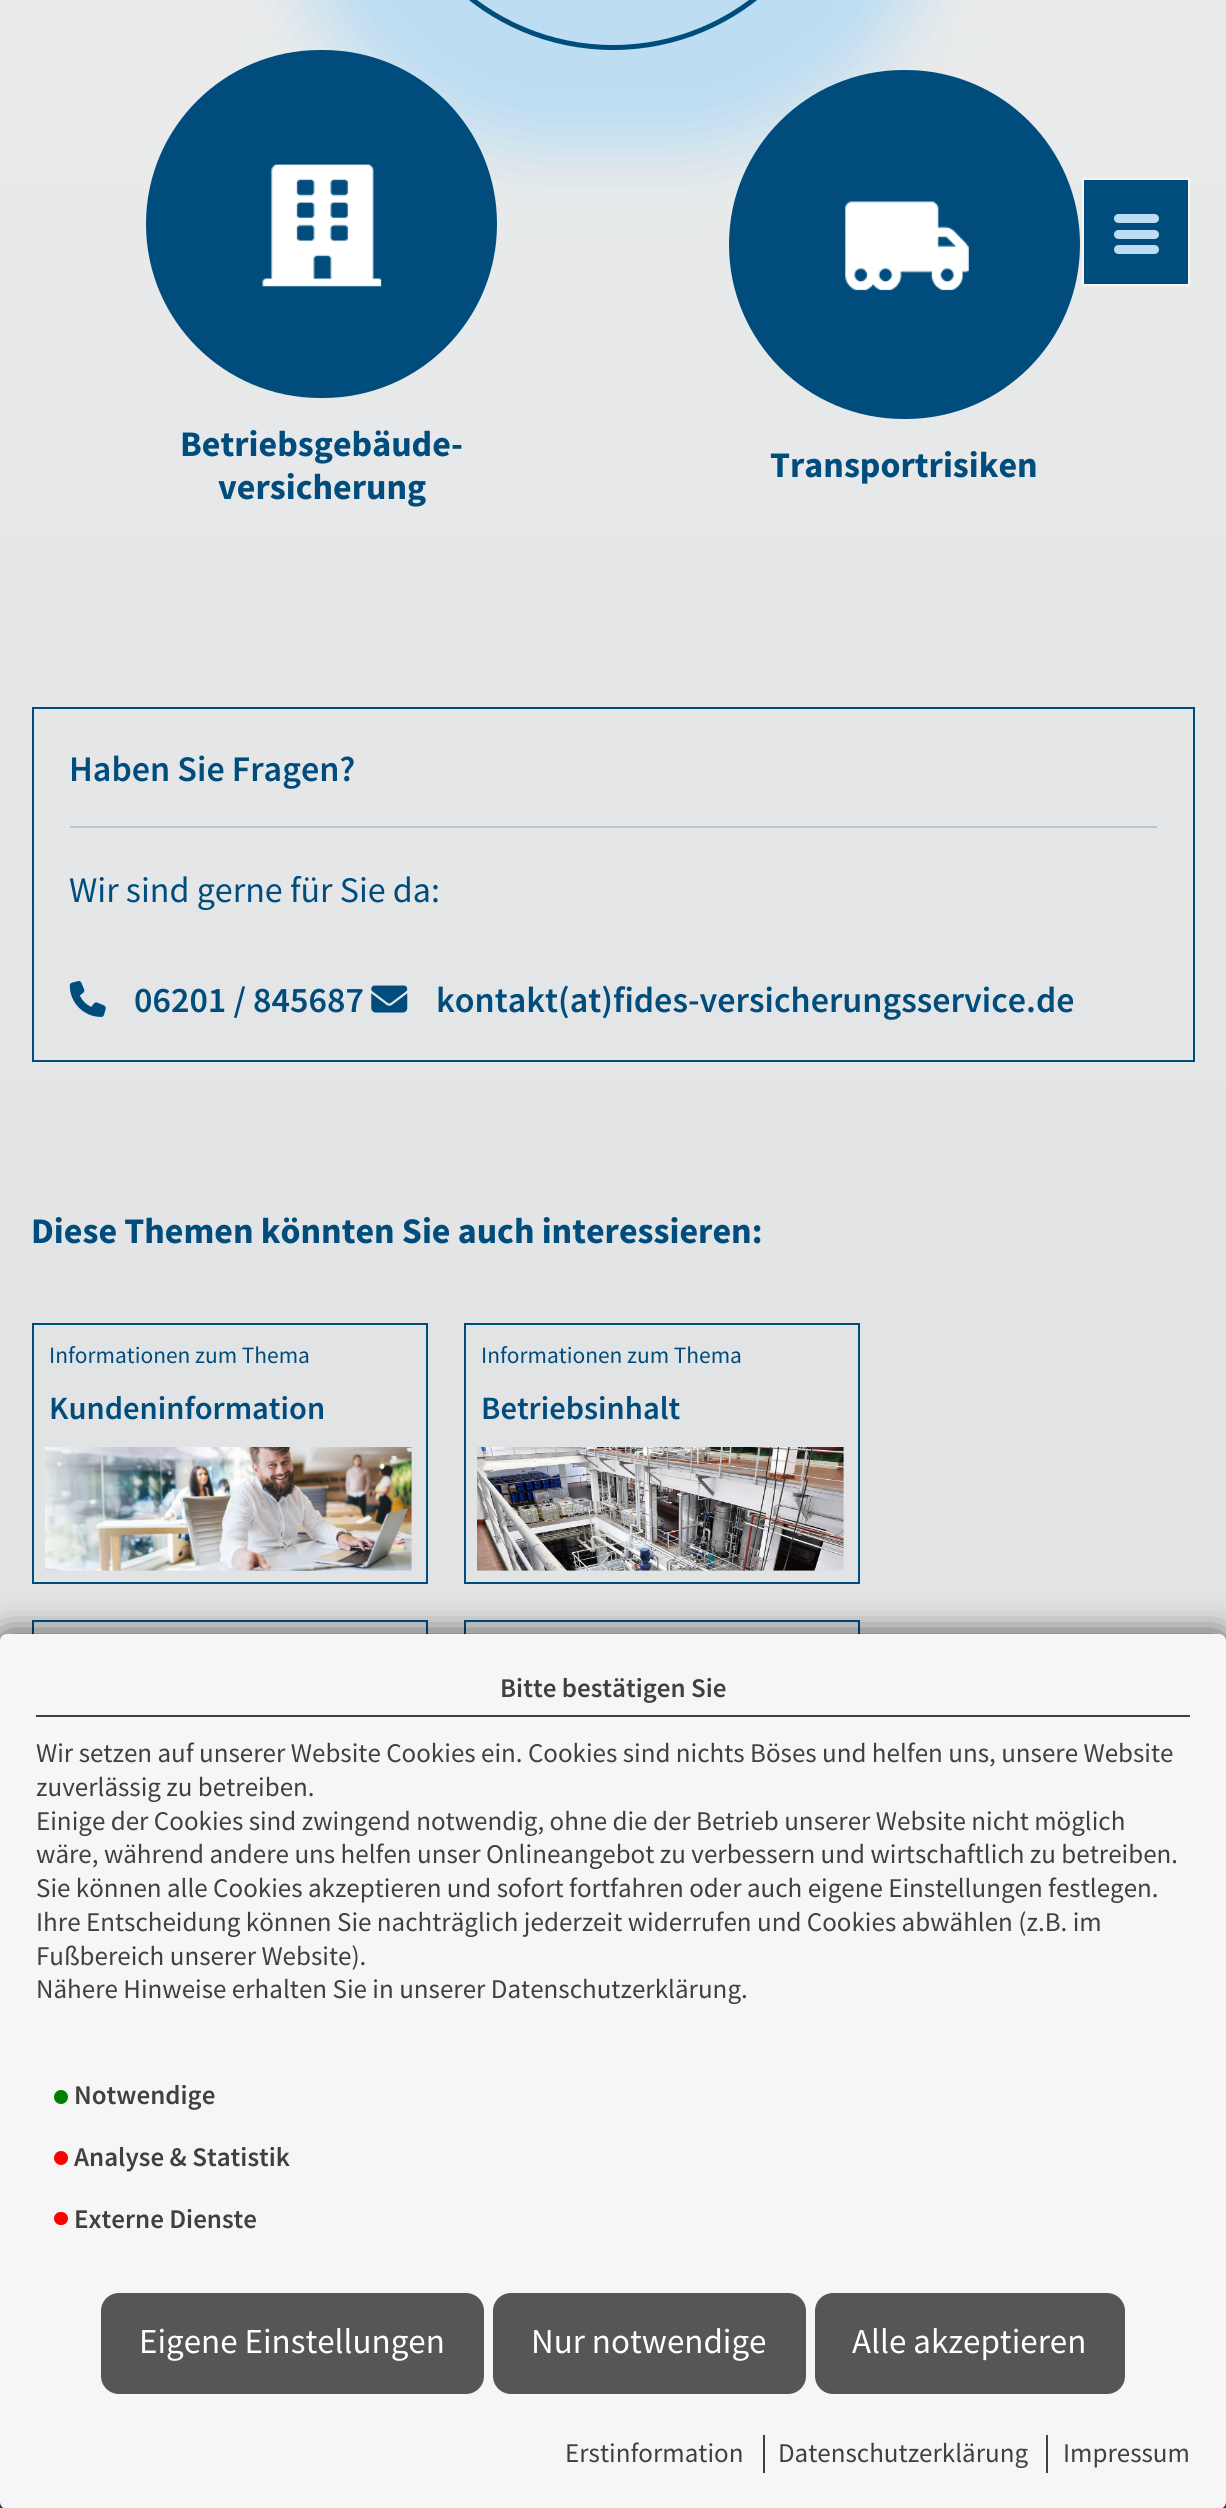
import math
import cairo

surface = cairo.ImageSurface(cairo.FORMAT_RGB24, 1226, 2508)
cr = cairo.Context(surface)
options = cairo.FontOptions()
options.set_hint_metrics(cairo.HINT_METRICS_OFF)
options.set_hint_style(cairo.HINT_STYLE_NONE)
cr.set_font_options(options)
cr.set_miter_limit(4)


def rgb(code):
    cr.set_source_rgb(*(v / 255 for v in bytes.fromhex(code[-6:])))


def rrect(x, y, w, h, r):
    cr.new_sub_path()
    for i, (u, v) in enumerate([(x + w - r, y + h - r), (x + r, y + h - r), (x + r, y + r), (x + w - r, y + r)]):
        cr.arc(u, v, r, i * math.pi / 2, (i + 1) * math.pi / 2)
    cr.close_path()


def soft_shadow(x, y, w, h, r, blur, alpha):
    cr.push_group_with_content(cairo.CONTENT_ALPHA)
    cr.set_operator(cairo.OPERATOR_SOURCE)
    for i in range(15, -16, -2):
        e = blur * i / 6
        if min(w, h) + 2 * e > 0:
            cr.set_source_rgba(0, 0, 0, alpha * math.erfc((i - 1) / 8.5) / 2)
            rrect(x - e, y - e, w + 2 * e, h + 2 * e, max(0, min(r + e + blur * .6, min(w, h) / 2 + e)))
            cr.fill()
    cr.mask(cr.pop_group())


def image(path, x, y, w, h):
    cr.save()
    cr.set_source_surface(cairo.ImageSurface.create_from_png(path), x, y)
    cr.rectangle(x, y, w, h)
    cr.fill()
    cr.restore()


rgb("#ffffff")
cr.paint()
gradient = cairo.LinearGradient(613, -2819, 613, 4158)
gradient.add_color_stop_rgba(0, 1, 1, 1, 1)
gradient.add_color_stop_rgba(0.06, 1, 1, 1, 1)
gradient.add_color_stop_rgba(0.15, 0.961, 0.961, 0.961, 1)
gradient.add_color_stop_rgba(0.6, 0.882, 0.89, 0.894, 1)
cr.set_source(gradient)
cr.rectangle(0, 0, 1226, 1641)
cr.fill()
rgb("#004d7d")
cr.rectangle(1083, 179, 106, 106)
cr.fill_preserve()
rgb("#f5f5f5")
cr.stroke()
rgb("#bcddf2")
rrect(1114, 230, 45, 9, 4.5)
cr.fill()
rrect(1114, 214, 45, 9, 4.5)
cr.fill()
rrect(1114, 245, 45, 9, 4.5)
cr.fill()
rgb("#bcddf2")
soft_shadow(279, -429, 668, 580, 334, 31.5, 1)
rrect(382.5, -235.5, 461, 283, 230.5)
rgb("#004d7d")
cr.set_line_width(5)
cr.stroke()
rrect(146, 50, 351, 348, 174)
cr.fill()
image("img/1.png", 262, 164, 120, 123)
rrect(729, 70, 351, 349, 174.5)
cr.fill()
image("img/2.png", 845, 201, 124, 90)
cr.rectangle(33, 708, 1161, 353)
cr.set_line_width(2)
cr.stroke()
rgb("#b6c7d2")
cr.rectangle(70, 826, 1087, 2)
cr.fill()
image("img/3.png", 69, 981, 37, 36)
image("img/4.png", 371, 985, 37, 28)
cr.rectangle(33, 1324, 394, 259)
rgb("#004d7d")
cr.stroke()
image("img/5.png", 45, 1447, 367, 124)
cr.rectangle(465, 1324, 394, 259)
cr.stroke()
image("img/6.png", 477, 1447, 367, 124)
cr.rectangle(33, 1621, 394, 309)
cr.stroke()
cr.rectangle(465, 1621, 394, 309)
cr.stroke()
rgb("#0c5583")
cr.rectangle(0, 2502, 1226, 6)
cr.fill()
rgb("#000000")
soft_shadow(2, 1636, 1222, 871, 5, 17, 0.75)
rgb("#f6f6f6")
rrect(0, 1634, 1226, 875, 7)
cr.fill()
rgb("#404040")
cr.rectangle(36, 1715, 1154, 2)
cr.fill()
rgb("#008000")
cr.arc(61, 2097, 7, 0, 2 * math.pi)
cr.fill()
rgb("#ff0000")
cr.arc(61, 2158, 7, 0, 2 * math.pi)
cr.fill()
rrect(54, 2212, 14, 13, 6.5)
cr.fill()
rgb("#565656")
rrect(102, 2294, 381, 99, 17)
cr.fill_preserve()
cr.stroke()
rrect(494, 2294, 311, 99, 17)
cr.fill_preserve()
cr.stroke()
rrect(816, 2294, 308, 99, 17)
cr.fill_preserve()
cr.stroke()
rgb("#404040")
cr.rectangle(763, 2435, 2, 38)
cr.fill()
cr.rectangle(1046, 2435, 2, 38)
cr.fill()
cr.select_font_face("Source Sans Pro", cairo.FONT_SLANT_NORMAL, cairo.FONT_WEIGHT_BOLD)
cr.set_font_size(36)
rgb("#004d7d")
for x, y, s in [
    (180, 456, "Betriebsgebäude-"),
    (218, 499, "versicherung"),
    (770, 477, "Transportrisiken"),
]:
    cr.move_to(x, y)
    cr.show_text(s)
cr.select_font_face("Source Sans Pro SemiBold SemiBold")
cr.move_to(69, 781)
cr.show_text("Haben Sie Fragen?")
cr.select_font_face("Source Sans Pro")
cr.move_to(69, 902)
cr.show_text("Wir sind gerne für Sie da:")
cr.select_font_face("Source Sans Pro SemiBold SemiBold")
cr.move_to(134, 1012)
cr.show_text("06201 / 845687")
cr.move_to(436, 1012)
cr.show_text("kontakt(at)fides-versicherungsservice.de")
cr.select_font_face("Source Sans Pro", cairo.FONT_SLANT_NORMAL, cairo.FONT_WEIGHT_BOLD)
cr.move_to(31, 1243)
cr.show_text("Diese Themen könnten Sie auch interessieren:")
cr.select_font_face("Source Sans Pro")
cr.set_font_size(23.4)
cr.move_to(49, 1363)
cr.show_text("Informationen zum Thema")
cr.select_font_face("Source Sans Pro SemiBold SemiBold")
cr.set_font_size(32.5)
cr.move_to(49, 1419)
cr.show_text("Kundeninformation")
cr.select_font_face("Source Sans Pro")
cr.set_font_size(23.4)
cr.move_to(481, 1363)
cr.show_text("Informationen zum Thema")
cr.select_font_face("Source Sans Pro SemiBold SemiBold")
cr.set_font_size(32.5)
cr.move_to(481, 1419)
cr.show_text("Betriebsinhalt")
cr.set_font_size(27)
rgb("#404040")
cr.move_to(500, 1697)
cr.show_text("Bitte bestätigen Sie")
cr.select_font_face("Source Sans Pro")
for x, y, s in [
    (36, 1762, "Wir setzen auf unserer Website Cookies ein. Cookies sind nichts Böses und helfen uns, unsere Website"),
    (36, 1796, "zuverlässig zu betreiben."),
    (36, 1830, "Einige der Cookies sind zwingend notwendig, ohne die der Betrieb unserer Website nicht möglich"),
    (36, 1863, "wäre, während andere uns helfen unser Onlineangebot zu verbessern und wirtschaftlich zu betreiben."),
    (36, 1897, "Sie können alle Cookies akzeptieren und sofort fortfahren oder auch eigene Einstellungen festlegen."),
    (36, 1931, "Ihre Entscheidung können Sie nachträglich jederzeit widerrufen und Cookies abwählen (z.B. im"),
    (36, 1965, "Fußbereich unserer Website)."),
    (36, 1998, "Nähere Hinweise erhalten Sie in unserer Datenschutzerklärung."),
]:
    cr.move_to(x, y)
    cr.show_text(s)
cr.select_font_face("Source Sans Pro SemiBold SemiBold")
for x, y, s in [
    (74, 2104, "Notwendige"),
    (74, 2166, "Analyse & Statistik"),
    (74, 2228, "Externe Dienste"),
]:
    cr.move_to(x, y)
    cr.show_text(s)
cr.select_font_face("Source Sans Pro")
cr.set_font_size(35)
rgb("#ffffff")
for x, y, s in [
    (139, 2353, "Eigene Einstellungen"),
    (531, 2353, "Nur notwendige"),
    (852, 2353, "Alle akzeptieren"),
]:
    cr.move_to(x, y)
    cr.show_text(s)
cr.set_font_size(27)
rgb("#404040")
for x, y, s in [
    (565, 2462, "Erstinformation"),
    (778, 2462, "Datenschutzerklärung"),
    (1063, 2462, "Impressum"),
]:
    cr.move_to(x, y)
    cr.show_text(s)
surface.write_to_png("page.png")
